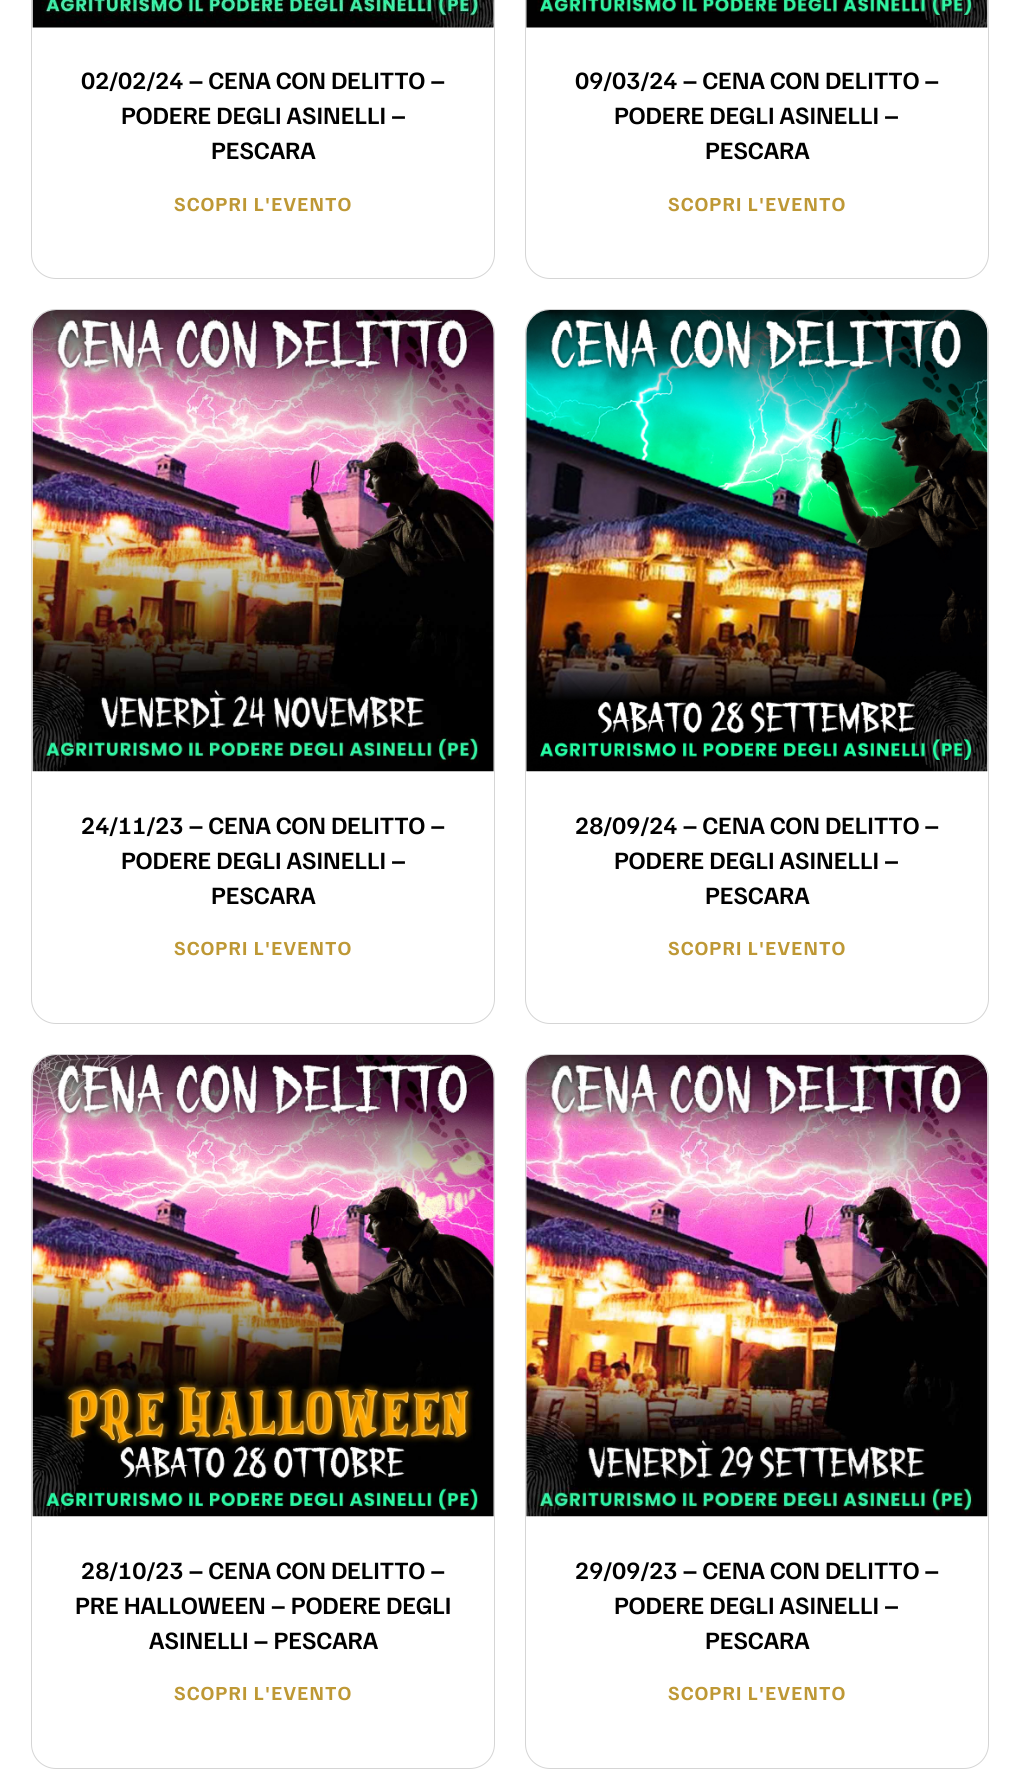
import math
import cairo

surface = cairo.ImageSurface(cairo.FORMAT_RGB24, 1020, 1781)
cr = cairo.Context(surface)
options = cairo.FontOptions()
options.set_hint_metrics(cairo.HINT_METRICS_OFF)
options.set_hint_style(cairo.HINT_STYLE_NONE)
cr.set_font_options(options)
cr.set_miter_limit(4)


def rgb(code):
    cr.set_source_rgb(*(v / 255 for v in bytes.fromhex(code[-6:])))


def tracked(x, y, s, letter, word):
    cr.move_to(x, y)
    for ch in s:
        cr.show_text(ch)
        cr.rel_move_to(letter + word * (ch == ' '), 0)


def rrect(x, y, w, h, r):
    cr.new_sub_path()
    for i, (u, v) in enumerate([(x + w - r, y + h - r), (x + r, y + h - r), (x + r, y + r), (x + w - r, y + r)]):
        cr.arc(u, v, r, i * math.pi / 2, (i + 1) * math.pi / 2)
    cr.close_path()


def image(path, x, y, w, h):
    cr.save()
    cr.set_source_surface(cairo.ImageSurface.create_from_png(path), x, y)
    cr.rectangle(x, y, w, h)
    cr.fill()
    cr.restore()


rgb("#ffffff")
cr.paint()
rrect(31.5, -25.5, 463, 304, 24.5)
rgb("#d5d5d5")
cr.set_line_width(1)
cr.stroke()
image("img/1.png", 32, 0, 462, 28)
rrect(525.5, -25.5, 463, 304, 24.5)
cr.stroke()
image("img/2.png", 526, 0, 462, 28)
rrect(31.5, 309.5, 463, 714, 24.5)
cr.stroke()
image("img/3.png", 32, 310, 462, 462)
rrect(525.5, 309.5, 463, 714, 24.5)
cr.stroke()
image("img/4.png", 526, 310, 462, 462)
rrect(31.5, 1054.5, 463, 714, 24.5)
cr.stroke()
image("img/5.png", 32, 1055, 462, 462)
rrect(525.5, 1054.5, 463, 714, 24.5)
cr.stroke()
image("img/6.png", 526, 1055, 462, 462)
cr.select_font_face("Familjen Grotesk SemiBold")
cr.set_font_size(25)
rgb("#000000")
for x, y, s in [
    (81, 89, "02/02/24 – CENA CON DELITTO –"),
    (121, 124, "PODERE DEGLI ASINELLI –"),
    (211, 159, "PESCARA"),
]:
    cr.move_to(x, y)
    cr.show_text(s)
cr.select_font_face("Familjen Grotesk", cairo.FONT_SLANT_NORMAL, cairo.FONT_WEIGHT_BOLD)
cr.set_font_size(20)
rgb("#be9835")
tracked(174, 211, "SCOPRI L'EVENTO", 1.25, 0)
cr.select_font_face("Familjen Grotesk SemiBold")
cr.set_font_size(25)
rgb("#000000")
for x, y, s in [
    (575, 89, "09/03/24 – CENA CON DELITTO –"),
    (614, 124, "PODERE DEGLI ASINELLI –"),
    (705, 159, "PESCARA"),
]:
    cr.move_to(x, y)
    cr.show_text(s)
cr.select_font_face("Familjen Grotesk", cairo.FONT_SLANT_NORMAL, cairo.FONT_WEIGHT_BOLD)
cr.set_font_size(20)
rgb("#be9835")
tracked(668, 211, "SCOPRI L'EVENTO", 1.25, 0)
cr.select_font_face("Familjen Grotesk SemiBold")
cr.set_font_size(25)
rgb("#000000")
for x, y, s in [
    (81, 834, "24/11/23 – CENA CON DELITTO –"),
    (121, 869, "PODERE DEGLI ASINELLI –"),
    (211, 904, "PESCARA"),
]:
    cr.move_to(x, y)
    cr.show_text(s)
cr.select_font_face("Familjen Grotesk", cairo.FONT_SLANT_NORMAL, cairo.FONT_WEIGHT_BOLD)
cr.set_font_size(20)
rgb("#be9835")
tracked(174, 955, "SCOPRI L'EVENTO", 1.25, 0)
cr.select_font_face("Familjen Grotesk SemiBold")
cr.set_font_size(25)
rgb("#000000")
for x, y, s in [
    (575, 834, "28/09/24 – CENA CON DELITTO –"),
    (614, 869, "PODERE DEGLI ASINELLI –"),
    (705, 904, "PESCARA"),
]:
    cr.move_to(x, y)
    cr.show_text(s)
cr.select_font_face("Familjen Grotesk", cairo.FONT_SLANT_NORMAL, cairo.FONT_WEIGHT_BOLD)
cr.set_font_size(20)
rgb("#be9835")
tracked(668, 955, "SCOPRI L'EVENTO", 1.25, 0)
cr.select_font_face("Familjen Grotesk SemiBold")
cr.set_font_size(25)
rgb("#000000")
for x, y, s in [
    (81, 1579, "28/10/23 – CENA CON DELITTO –"),
    (75, 1614, "PRE HALLOWEEN – PODERE DEGLI"),
    (149, 1649, "ASINELLI – PESCARA"),
]:
    cr.move_to(x, y)
    cr.show_text(s)
cr.select_font_face("Familjen Grotesk", cairo.FONT_SLANT_NORMAL, cairo.FONT_WEIGHT_BOLD)
cr.set_font_size(20)
rgb("#be9835")
tracked(174, 1700, "SCOPRI L'EVENTO", 1.25, 0)
cr.select_font_face("Familjen Grotesk SemiBold")
cr.set_font_size(25)
rgb("#000000")
for x, y, s in [
    (575, 1579, "29/09/23 – CENA CON DELITTO –"),
    (614, 1614, "PODERE DEGLI ASINELLI –"),
    (705, 1649, "PESCARA"),
]:
    cr.move_to(x, y)
    cr.show_text(s)
cr.select_font_face("Familjen Grotesk", cairo.FONT_SLANT_NORMAL, cairo.FONT_WEIGHT_BOLD)
cr.set_font_size(20)
rgb("#be9835")
tracked(668, 1700, "SCOPRI L'EVENTO", 1.25, 0)
surface.write_to_png("page.png")
